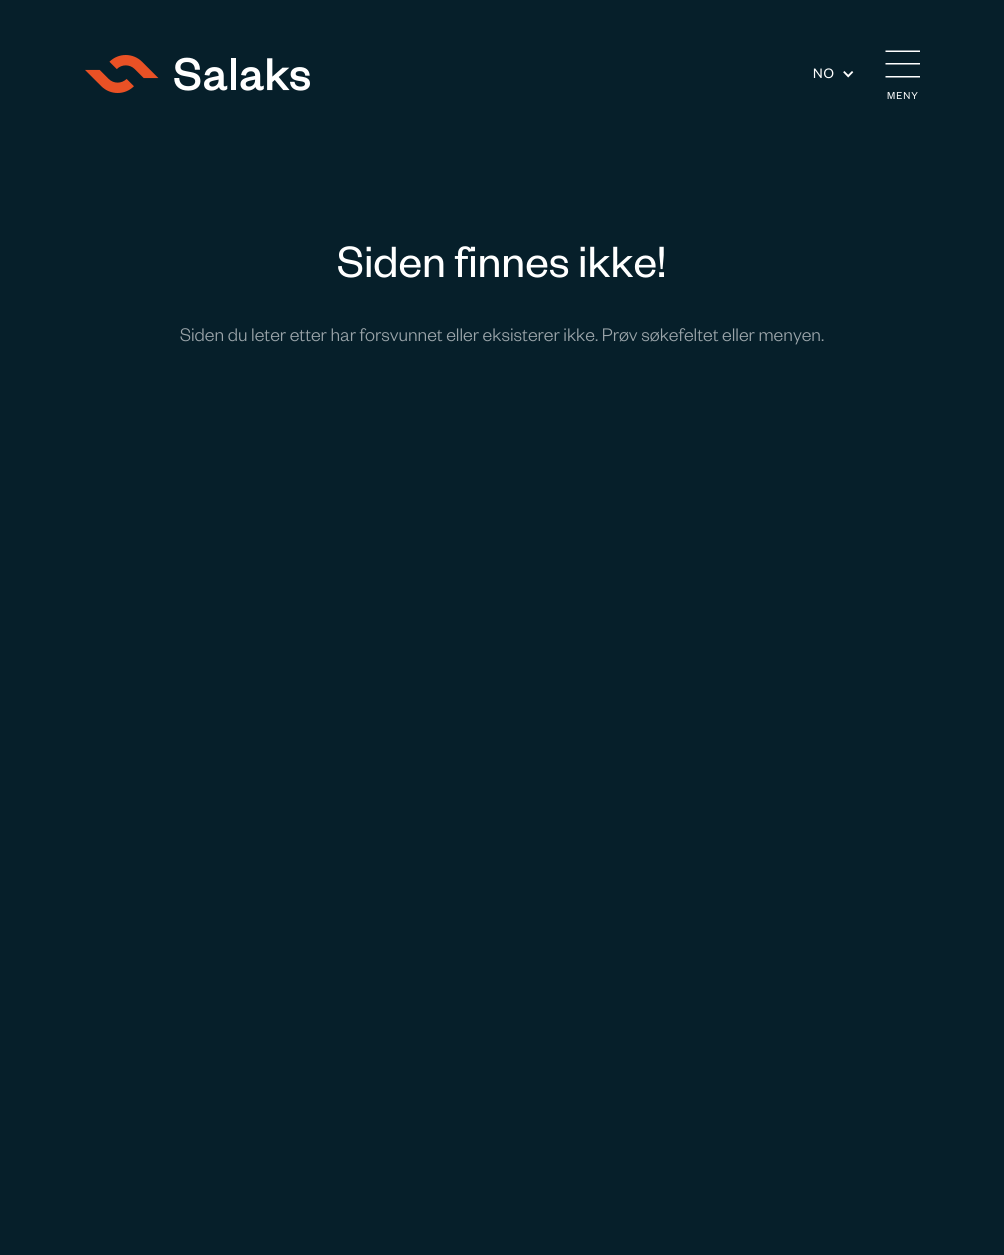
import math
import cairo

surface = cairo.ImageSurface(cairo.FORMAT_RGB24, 1004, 1255)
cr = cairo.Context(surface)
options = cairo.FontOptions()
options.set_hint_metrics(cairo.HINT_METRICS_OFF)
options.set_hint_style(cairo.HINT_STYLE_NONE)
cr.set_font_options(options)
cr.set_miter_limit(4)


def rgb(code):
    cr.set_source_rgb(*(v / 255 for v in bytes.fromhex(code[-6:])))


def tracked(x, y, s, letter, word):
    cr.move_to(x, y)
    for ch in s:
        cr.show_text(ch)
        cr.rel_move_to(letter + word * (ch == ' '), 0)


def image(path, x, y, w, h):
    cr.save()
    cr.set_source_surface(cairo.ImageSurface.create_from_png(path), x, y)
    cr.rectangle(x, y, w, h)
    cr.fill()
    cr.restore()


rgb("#061f2a")
cr.paint()
image("img/1.png", 85, 55, 225, 38)
image("img/2.png", 843, 71, 11, 7)
cr.save()
cr.rectangle(885, 46, 35, 36)
cr.clip()
rgb("#ffffff")
cr.new_path()
cr.move_to(885.5, 77.5)
cr.line_to(885.5, 76)
cr.line_to(920.5, 76)
cr.line_to(920.5, 77.5)
cr.close_path()
cr.move_to(885.5, 64.5)
cr.line_to(885.5, 63)
cr.line_to(920.5, 63)
cr.line_to(920.5, 64.5)
cr.close_path()
cr.move_to(885.5, 52)
cr.line_to(885.5, 50.5)
cr.line_to(920.5, 50.5)
cr.line_to(920.5, 52)
cr.close_path()
cr.fill()
cr.restore()
cr.select_font_face("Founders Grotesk")
cr.set_font_size(15)
rgb("#ffffff")
tracked(813, 78, "NO", 1, 0)
cr.set_font_size(11)
tracked(887, 99, "MENY", 1, 0)
cr.set_font_size(48)
cr.move_to(337, 277)
cr.show_text("Siden finnes ikke!")
cr.select_font_face("Founders Grotesk Light")
cr.set_font_size(20)
rgb("#9ba5aa")
cr.move_to(180, 341)
cr.show_text("Siden du leter etter har forsvunnet eller eksisterer ikke. Prøv søkefeltet eller menyen.")
surface.write_to_png("page.png")
